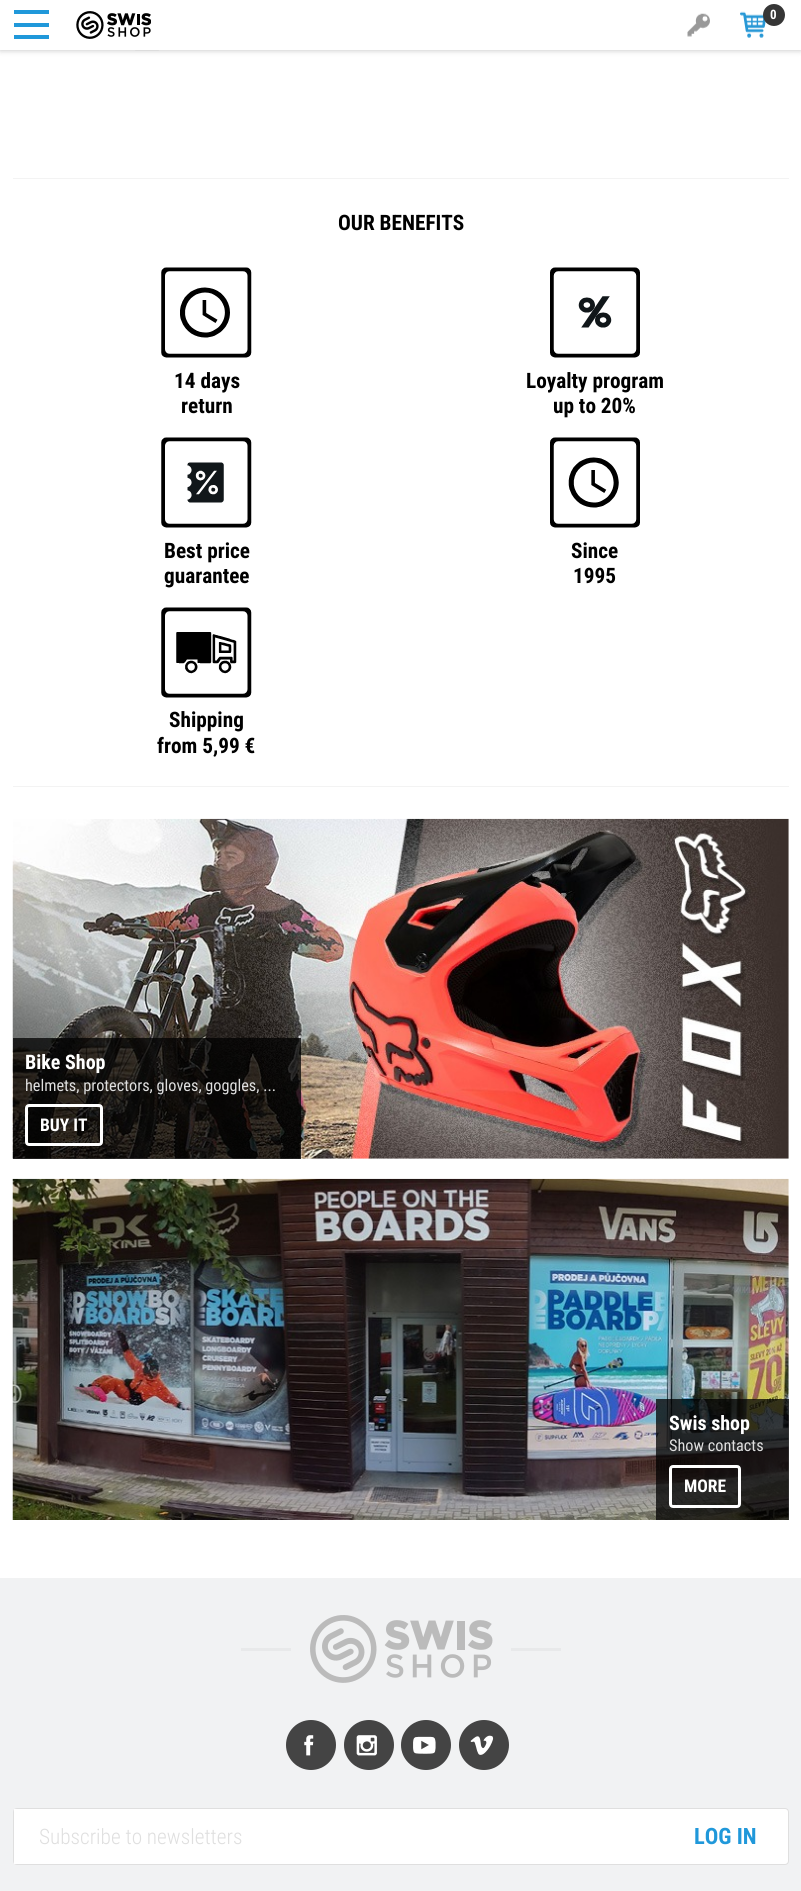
import math
import cairo

surface = cairo.ImageSurface(cairo.FORMAT_RGB24, 801, 1891)
cr = cairo.Context(surface)
options = cairo.FontOptions()
options.set_hint_metrics(cairo.HINT_METRICS_OFF)
options.set_hint_style(cairo.HINT_STYLE_NONE)
cr.set_font_options(options)
cr.set_miter_limit(4)


def rgb(code):
    cr.set_source_rgb(*(v / 255 for v in bytes.fromhex(code[-6:])))


def rrect(x, y, w, h, r):
    cr.new_sub_path()
    for i, (u, v) in enumerate([(x + w - r, y + h - r), (x + r, y + h - r), (x + r, y + r), (x + w - r, y + r)]):
        cr.arc(u, v, r, i * math.pi / 2, (i + 1) * math.pi / 2)
    cr.close_path()


def soft_shadow(x, y, w, h, r, blur, alpha):
    cr.push_group_with_content(cairo.CONTENT_ALPHA)
    cr.set_operator(cairo.OPERATOR_SOURCE)
    for i in range(15, -16, -2):
        e = blur * i / 6
        if min(w, h) + 2 * e > 0:
            cr.set_source_rgba(0, 0, 0, alpha * math.erfc((i - 1) / 8.5) / 2)
            rrect(x - e, y - e, w + 2 * e, h + 2 * e, max(0, min(r + e + blur * .6, min(w, h) / 2 + e)))
            cr.fill()
    cr.mask(cr.pop_group())


def image(path, x, y, w, h):
    cr.save()
    cr.set_source_surface(cairo.ImageSurface.create_from_png(path), x, y)
    cr.rectangle(x, y, w, h)
    cr.fill()
    cr.restore()


rgb("#ffffff")
cr.paint()
image("img/4.png", 135, 50, 24, 1)
rgb("#000000")
soft_shadow(0, 0, 801, 50, 0, 3, 0.25)
for x, y, w, h, color in [
    (0, 0, 801, 50, "#ffffff"),
    (14, 23, 35, 4, "#2098da"),
    (14, 10, 35, 4, "#2098da"),
    (14, 35, 35, 4, "#2098da"),
]:
    rgb(color)
    cr.rectangle(x, y, w, h)
    cr.fill()
image("img/1.png", 76, 11, 75, 28)
image("img/2.png", 687, 13, 23, 24)
image("img/3.png", 740, 11, 26, 27)
rgb("#363636")
cr.arc(774, 15, 11, 0, 2 * math.pi)
cr.fill()
rgb("#f3f3f3")
cr.rectangle(13, 178, 776, 1)
cr.fill()
image("img/5.png", 161, 267, 91, 91)
image("img/6.png", 550, 267, 90, 91)
image("img/7.png", 161, 437, 91, 91)
image("img/8.png", 550, 437, 90, 91)
image("img/9.png", 161, 607, 91, 91)
cr.rectangle(13, 786, 776, 1)
cr.fill()
image("img/10.png", 12, 818, 777, 341)
cr.set_source_rgba(0, 0, 0, 0.75)
cr.rectangle(13, 1038, 288, 121)
cr.fill()
rrect(26.5, 1105.5, 75, 39, 2.5)
rgb("#ffffff")
cr.set_line_width(3)
cr.stroke()
image("img/11.png", 12, 1178, 777, 342)
cr.set_source_rgba(0, 0, 0, 0.75)
cr.rectangle(656, 1399, 133, 121)
cr.fill()
rrect(670.5, 1466.5, 69, 40, 2.5)
rgb("#ffffff")
cr.stroke()
rgb("#f1f2f3")
cr.rectangle(0, 1578, 801, 313)
cr.fill()
rgb("#e8e9ea")
cr.rectangle(241, 1648, 50, 3)
cr.fill()
image("img/12.png", 310, 1615, 183, 68)
cr.rectangle(511, 1648, 50, 3)
cr.fill()
rgb("#444444")
cr.arc(311, 1745, 25, 0, 2 * math.pi)
cr.fill()
image("img/13.png", 304, 1735, 10, 21)
cr.arc(369, 1745, 25, 0, 2 * math.pi)
cr.fill()
image("img/14.png", 356, 1735, 21, 21)
cr.arc(426, 1745, 25, 0, 2 * math.pi)
cr.fill()
image("img/15.png", 413, 1736, 23, 18)
cr.arc(484, 1745, 25, 0, 2 * math.pi)
cr.fill()
image("img/16.png", 470, 1735, 24, 20)
rgb("#ffffff")
rrect(13.5, 1808.5, 775, 56, 3.5)
cr.fill_preserve()
rgb("#dfdfdf")
cr.set_line_width(1)
cr.stroke()
rgb("#ffffff")
cr.rectangle(14, 1809, 3, 55)
cr.fill()
cr.select_font_face("Roboto Condensed", cairo.FONT_SLANT_NORMAL, cairo.FONT_WEIGHT_BOLD)
cr.set_font_size(13)
cr.move_to(770, 19)
cr.show_text("0")
cr.set_font_size(21.25)
rgb("#000000")
for x, y, s in [
    (338, 230, "OUR BENEFITS"),
    (174, 388, "14 days"),
    (181, 413, "return"),
    (526, 388, "Loyalty program"),
    (553, 413, "up to 20%"),
    (164, 558, "Best price"),
    (164, 583, "guarantee"),
    (571, 558, "Since"),
    (573, 583, "1995"),
    (169, 727, "Shipping"),
    (157, 753, "from 5,99 €"),
]:
    cr.move_to(x, y)
    cr.show_text(s)
cr.set_font_size(20)
rgb("#ffffff")
cr.move_to(25, 1069)
cr.show_text("Bike Shop")
cr.select_font_face("Roboto Condensed")
cr.set_font_size(16.25)
rgb("#dfdfdf")
cr.move_to(25, 1091)
cr.show_text("helmets, protectors, gloves, goggles, ...")
cr.select_font_face("Roboto Condensed", cairo.FONT_SLANT_NORMAL, cairo.FONT_WEIGHT_BOLD)
cr.set_font_size(17.5)
rgb("#ffffff")
cr.move_to(40, 1131)
cr.show_text("BUY IT")
cr.set_font_size(20)
cr.move_to(669, 1430)
cr.show_text("Swis shop")
cr.select_font_face("Roboto Condensed")
cr.set_font_size(16.25)
rgb("#dfdfdf")
cr.move_to(669, 1451)
cr.show_text("Show contacts")
cr.select_font_face("Roboto Condensed", cairo.FONT_SLANT_NORMAL, cairo.FONT_WEIGHT_BOLD)
cr.set_font_size(17.5)
rgb("#ffffff")
cr.move_to(684, 1492)
cr.show_text("MORE")
cr.select_font_face("Roboto Condensed Light")
cr.set_font_size(21.25)
rgb("#dfdfdf")
cr.move_to(39, 1844)
cr.show_text("Subscribe to newsletters")
cr.select_font_face("Roboto Condensed", cairo.FONT_SLANT_NORMAL, cairo.FONT_WEIGHT_BOLD)
cr.set_font_size(22.5)
rgb("#2098da")
cr.move_to(694, 1844)
cr.show_text("LOG IN")
surface.write_to_png("page.png")
